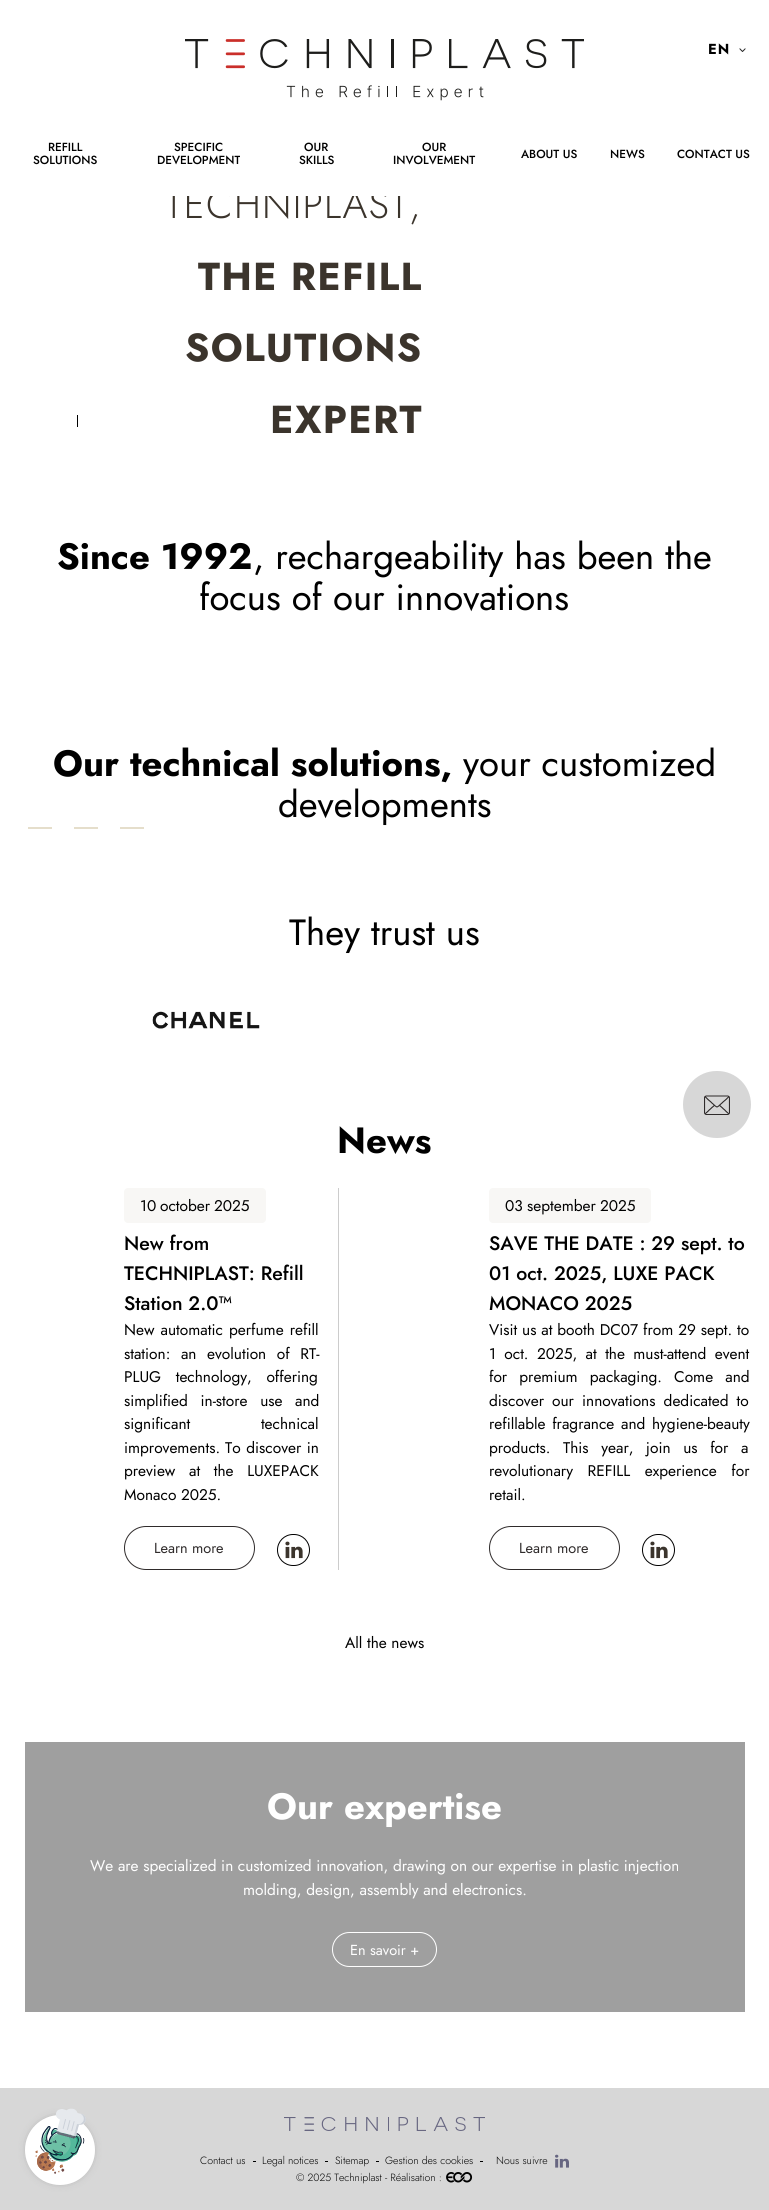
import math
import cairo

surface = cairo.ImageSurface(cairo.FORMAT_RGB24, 769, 2210)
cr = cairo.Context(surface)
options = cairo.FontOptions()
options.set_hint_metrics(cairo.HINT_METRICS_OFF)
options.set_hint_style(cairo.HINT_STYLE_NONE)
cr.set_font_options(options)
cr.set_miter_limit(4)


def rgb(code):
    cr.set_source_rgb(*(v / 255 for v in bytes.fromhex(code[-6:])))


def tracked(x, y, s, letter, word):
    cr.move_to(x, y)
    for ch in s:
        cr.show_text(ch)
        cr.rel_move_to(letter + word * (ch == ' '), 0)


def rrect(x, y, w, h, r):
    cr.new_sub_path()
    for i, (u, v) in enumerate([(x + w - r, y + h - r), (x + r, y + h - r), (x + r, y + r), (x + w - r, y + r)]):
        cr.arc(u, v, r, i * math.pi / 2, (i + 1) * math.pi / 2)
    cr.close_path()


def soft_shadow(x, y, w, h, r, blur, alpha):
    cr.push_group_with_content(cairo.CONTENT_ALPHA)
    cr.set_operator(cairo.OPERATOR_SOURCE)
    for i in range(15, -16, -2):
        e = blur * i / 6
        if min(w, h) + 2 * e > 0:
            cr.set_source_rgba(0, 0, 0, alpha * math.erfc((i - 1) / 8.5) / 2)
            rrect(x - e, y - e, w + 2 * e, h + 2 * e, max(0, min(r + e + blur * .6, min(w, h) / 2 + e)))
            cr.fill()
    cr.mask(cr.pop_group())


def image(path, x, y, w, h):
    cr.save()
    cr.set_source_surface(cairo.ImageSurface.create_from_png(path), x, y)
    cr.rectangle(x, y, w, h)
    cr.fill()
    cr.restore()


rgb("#ffffff")
cr.paint()
image("img/1.png", 185, 39, 399, 62)
image("img/2.png", 739, 48, 7, 4)
rgb("#d7d7d7")
rrect(683, 1071, 68, 67, 33.5)
cr.fill()
image("img/3.png", 704, 1095, 26, 20)
for x, y, w, h, color in [
    (77, 415, 1, 12, "#000000"),
    (28, 827, 24, 2, "#e5decb"),
    (74, 827, 24, 2, "#e5decb"),
    (120, 827, 24, 2, "#e5decb"),
]:
    rgb(color)
    cr.rectangle(x, y, w, h)
    cr.fill()
image("img/4.png", 152, 1011, 108, 18)
rgb("#f8f7f5")
rrect(124, 1188, 142, 35, 4)
cr.fill()
rrect(124.5, 1526.5, 130, 43, 21.5)
rgb("#2f2b2b")
cr.set_line_width(1)
cr.stroke()
rrect(277.5, 1534.5, 32, 31, 15.5)
rgb("#000000")
cr.stroke()
image("img/5.png", 285, 1541, 18, 18)
rgb("#cccccc")
cr.rectangle(338, 1188, 1, 382)
cr.fill()
rgb("#f8f7f5")
rrect(489, 1188, 162, 35, 4)
cr.fill()
rrect(489.5, 1526.5, 130, 43, 21.5)
rgb("#2f2b2b")
cr.stroke()
rrect(642.5, 1534.5, 32, 31, 15.5)
rgb("#000000")
cr.stroke()
image("img/5.png", 650, 1541, 18, 18)
rgb("#9f9f9f")
cr.rectangle(25, 1742, 720, 270)
cr.fill()
rrect(332.5, 1932.5, 104, 34, 17)
rgb("#ffffff")
cr.stroke()
rgb("#d7d7d7")
cr.rectangle(0, 2088, 769, 122)
cr.fill()
rgb("#000000")
soft_shadow(30, 2120, 60, 60, 30, 5, 0.4)
rgb("#ffffff")
cr.arc(60, 2150, 35, 0, 2 * math.pi)
cr.fill()
image("img/6.png", 35, 2108, 51, 66)
image("img/7.png", 284, 2117, 201, 14)
for x, y, w, h, color in [
    (253, 2161, 3, 1, "#000000"),
    (325, 2161, 3, 1, "#000000"),
    (376, 2161, 3, 1, "#000000"),
    (480, 2161, 3, 1, "#000000"),
]:
    rgb(color)
    cr.rectangle(x, y, w, h)
    cr.fill()
image("img/8.png", 555, 2154, 14, 14)
image("img/9.png", 446, 2172, 27, 11)
cr.select_font_face("Jost", cairo.FONT_SLANT_NORMAL, cairo.FONT_WEIGHT_BOLD)
cr.set_font_size(14.5)
tracked(708, 54, "EN", 1, 0)
cr.select_font_face("Jost Medium")
cr.set_font_size(11.75)
for x, y, s in [
    (48, 151, "REFILL"),
    (33, 164, "SOLUTIONS"),
    (174, 151, "SPECIFIC"),
    (157, 164, "DEVELOPMENT"),
    (304, 151, "OUR"),
    (299, 164, "SKILLS"),
    (422, 151, "OUR"),
    (393, 164, "INVOLVEMENT"),
    (521, 158, "ABOUT US"),
    (610, 158, "NEWS"),
    (677, 158, "CONTACT US"),
]:
    cr.move_to(x, y)
    cr.show_text(s)
cr.save()
cr.rectangle(0, 196, 769, 280)
cr.clip()
cr.select_font_face("Jost Light")
cr.set_font_size(39)
rgb("#3b342c")
tracked(165, 218, "TECHNIPLAST,", 1.25, 0)
cr.restore()
cr.select_font_face("Jost", cairo.FONT_SLANT_NORMAL, cairo.FONT_WEIGHT_BOLD)
cr.set_font_size(39)
rgb("#3b342c")
for x, y, s in [
    (198, 290, "THE REFILL"),
    (185, 361, "SOLUTIONS"),
    (270, 433, "EXPERT"),
]:
    tracked(x, y, s, 1.25, 0)
cr.set_font_size(36.5)
rgb("#000000")
cr.move_to(57, 569)
cr.show_text("Since 1992")
cr.select_font_face("Jost")
cr.move_to(253, 569)
cr.show_text(", rechargeability has been the")
cr.move_to(199, 610)
cr.show_text("focus of our innovations")
cr.select_font_face("Jost", cairo.FONT_SLANT_NORMAL, cairo.FONT_WEIGHT_BOLD)
cr.move_to(53, 776)
cr.show_text("Our technical solutions,")
cr.select_font_face("Jost")
for x, y, s in [
    (463, 776, "your customized"),
    (278, 817, "developments"),
    (289, 945, "They trust us"),
]:
    cr.move_to(x, y)
    cr.show_text(s)
cr.select_font_face("Jost", cairo.FONT_SLANT_NORMAL, cairo.FONT_WEIGHT_BOLD)
cr.move_to(337, 1153)
cr.show_text("News")
cr.select_font_face("Jost")
cr.set_font_size(15.45)
for x, y, s in [
    (140, 1211, "10"),
    (160, 1211, "october"),
    (214, 1211, "2025"),
]:
    cr.move_to(x, y)
    cr.show_text(s)
cr.select_font_face("Jost Medium")
cr.set_font_size(19.5)
for x, y, s in [
    (124, 1250, "New from"),
    (124, 1280, "TECHNIPLAST: Refill"),
    (124, 1310, "Station 2.0™"),
]:
    cr.move_to(x, y)
    cr.show_text(s)
cr.select_font_face("Jost")
cr.set_font_size(15.45)
tracked(124, 1335, "New automatic perfume refill", 0, 1.5)
tracked(124, 1359, "station: an evolution of RT-", 0, 6)
tracked(124, 1382, "PLUG technology, offering", 0, 10)
tracked(124, 1406, "simplified in-store use and", 0, 8)
tracked(124, 1429, "significant technical", 0, 66)
cr.move_to(124, 1453)
cr.show_text("improvements.")
tracked(225, 1453, "To discover in", 0, 1)
tracked(124, 1476, "preview at the LUXEPACK", 0, 9)
cr.move_to(124, 1500)
cr.show_text("Monaco 2025.")
cr.set_font_size(14.5)
rgb("#2f2b2b")
cr.move_to(154, 1553)
cr.show_text("Learn more")
cr.set_font_size(15.45)
rgb("#000000")
for x, y, s in [
    (505, 1211, "03"),
    (527, 1211, "september"),
    (600, 1211, "2025"),
]:
    cr.move_to(x, y)
    cr.show_text(s)
cr.select_font_face("Jost Medium")
cr.set_font_size(19.5)
for x, y, s in [
    (489, 1250, "SAVE THE DATE : 29 sept. to"),
    (489, 1280, "01 oct. 2025, LUXE PACK"),
    (489, 1310, "MONACO 2025"),
]:
    cr.move_to(x, y)
    cr.show_text(s)
cr.select_font_face("Jost")
cr.set_font_size(15.45)
tracked(489, 1335, "Visit us at booth DC07 from 29 sept. to", 0, 0.25)
tracked(489, 1359, "1 oct. 2025, at the must-attend event", 0, 3.75)
tracked(489, 1382, "for premium packaging. Come and", 0, 7.5)
tracked(489, 1406, "discover our innovations dedicated to", 0, 3.5)
tracked(489, 1429, "refillable fragrance and hygiene-beauty", 0, 2)
tracked(489, 1453, "products. This year, join us for a", 0, 8)
tracked(489, 1476, "revolutionary REFILL experience for", 0, 10)
cr.move_to(489, 1500)
cr.show_text("retail.")
cr.set_font_size(14.5)
rgb("#2f2b2b")
cr.move_to(519, 1553)
cr.show_text("Learn more")
cr.set_font_size(15.45)
rgb("#000000")
cr.move_to(345, 1648)
cr.show_text("All the news")
cr.select_font_face("Jost", cairo.FONT_SLANT_NORMAL, cairo.FONT_WEIGHT_BOLD)
cr.set_font_size(36.5)
rgb("#ffffff")
cr.move_to(267, 1819)
cr.show_text("Our expertise")
cr.select_font_face("Jost")
cr.set_font_size(15.45)
cr.move_to(90, 1871)
cr.show_text("We are specialized in customized innovation, drawing on our expertise in plastic injection")
cr.move_to(243, 1895)
cr.show_text("molding, design, assembly and electronics.")
cr.set_font_size(14.5)
cr.move_to(350, 1955)
cr.show_text("En savoir +")
cr.select_font_face("Jost Light")
cr.set_font_size(10.5)
rgb("#000000")
for x, y, s in [
    (200, 2164, "Contact us"),
    (262, 2164, "Legal notices"),
    (335, 2164, "Sitemap"),
    (385, 2164, "Gestion des cookies"),
    (496, 2164, "Nous suivre"),
    (296, 2181, "© 2025 Techniplast - Réalisation :"),
]:
    cr.move_to(x, y)
    cr.show_text(s)
surface.write_to_png("page.png")
